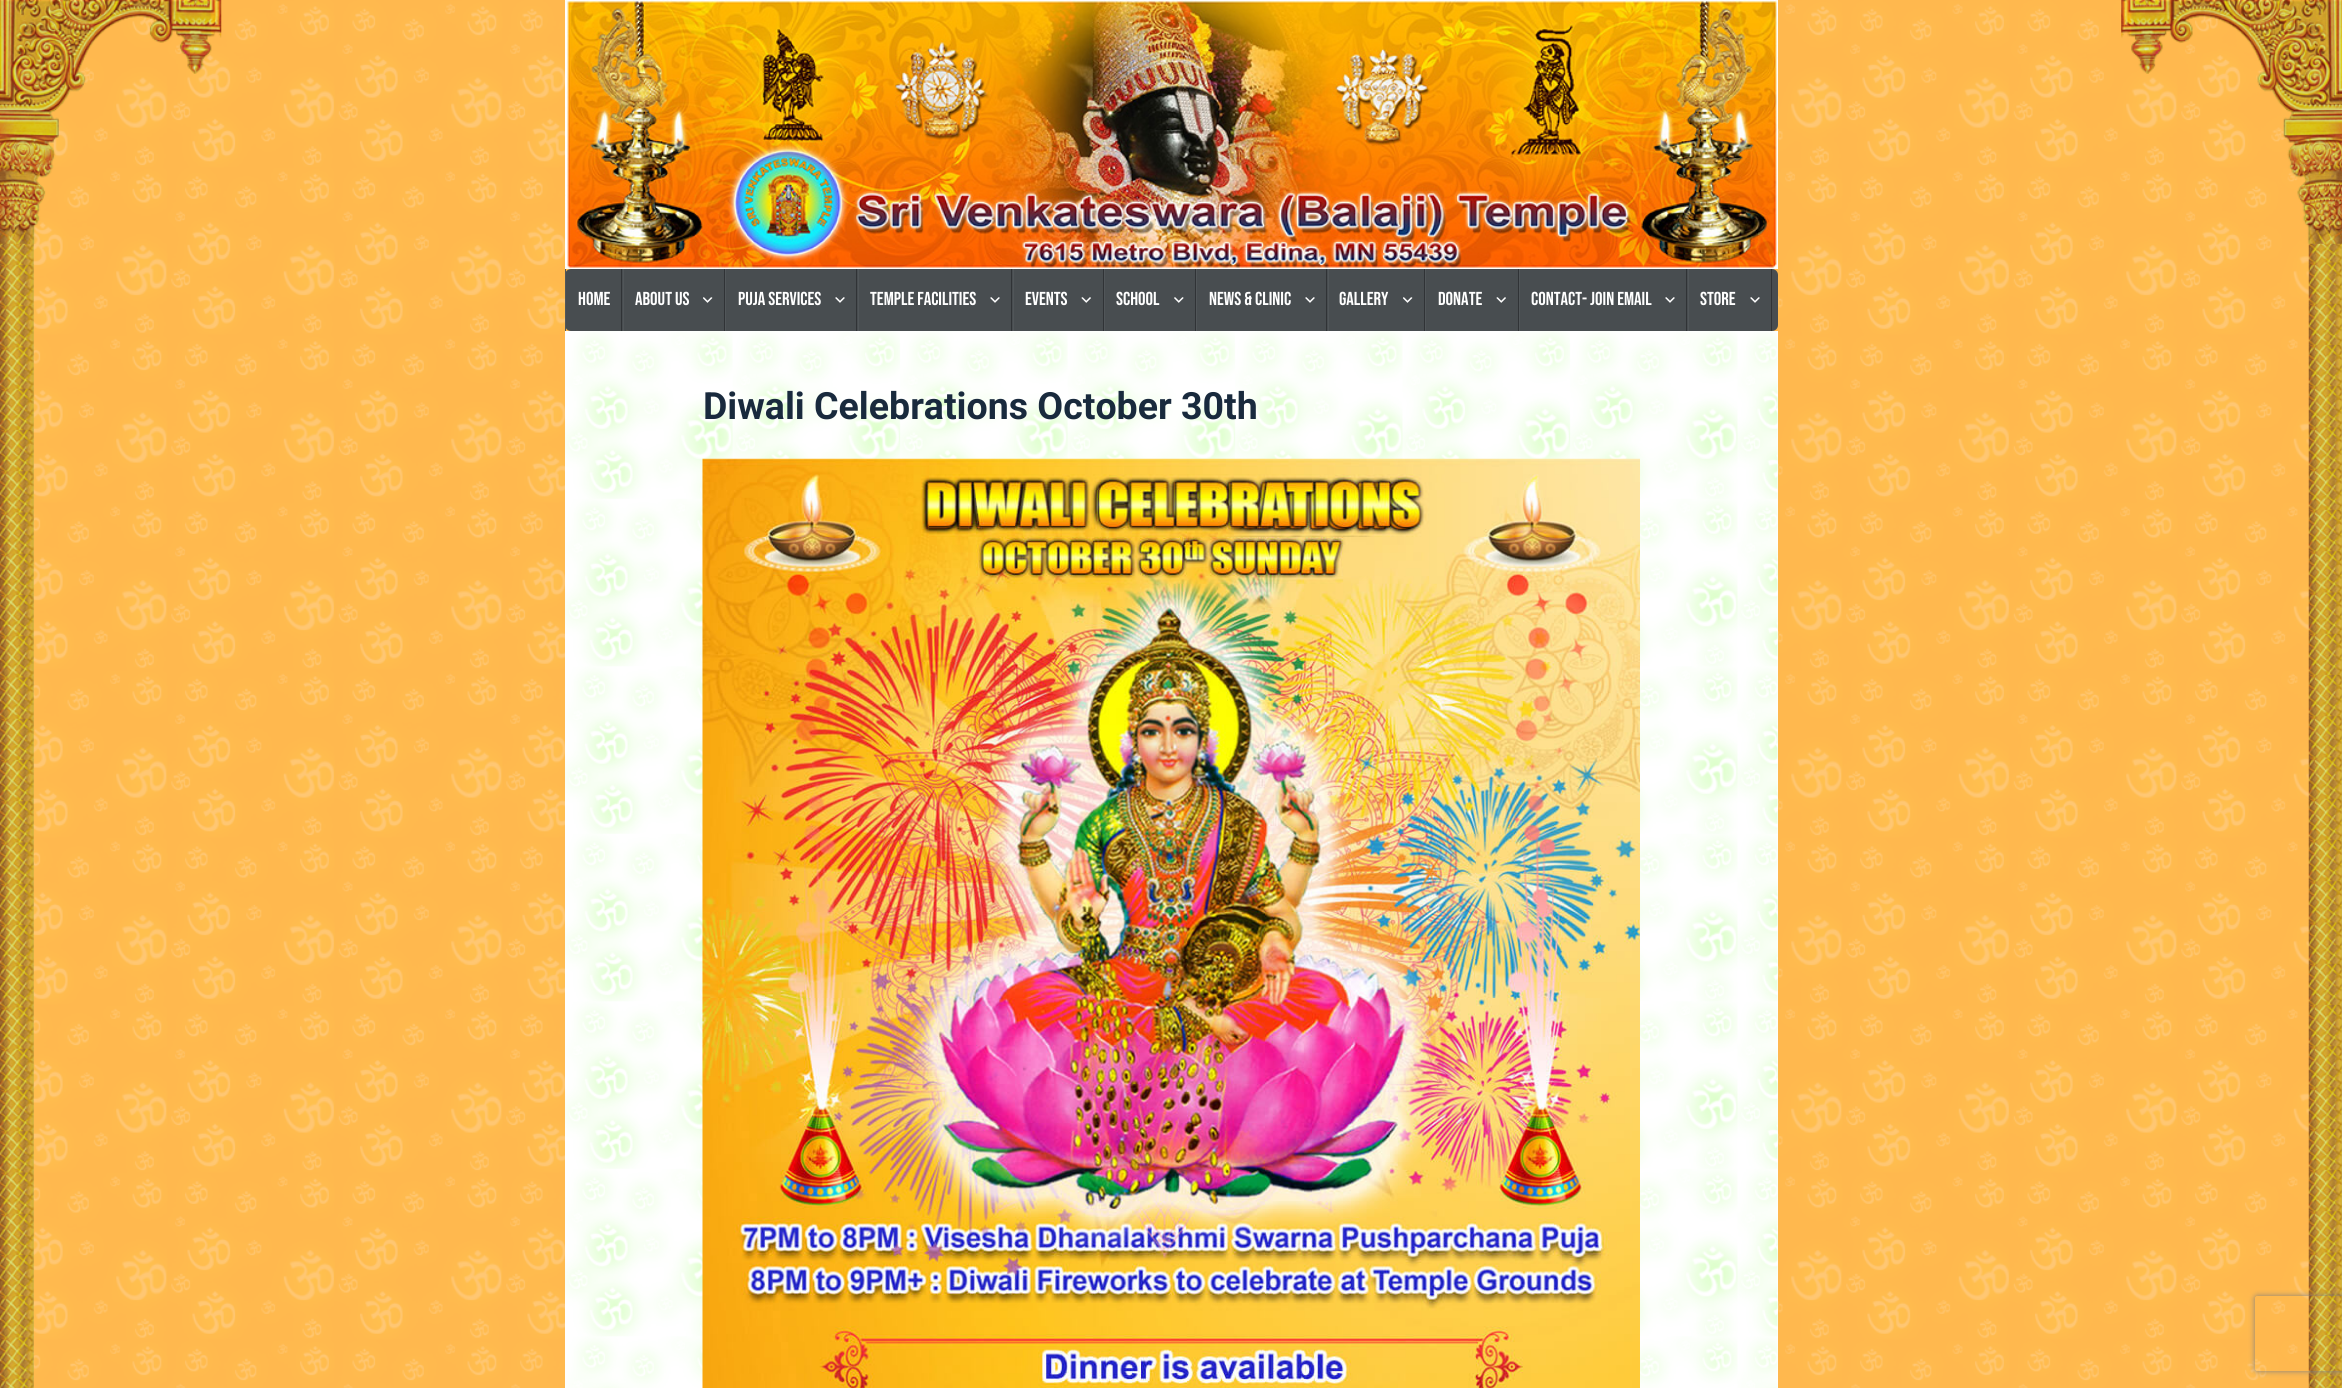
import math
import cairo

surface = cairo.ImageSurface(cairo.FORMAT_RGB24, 2342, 1388)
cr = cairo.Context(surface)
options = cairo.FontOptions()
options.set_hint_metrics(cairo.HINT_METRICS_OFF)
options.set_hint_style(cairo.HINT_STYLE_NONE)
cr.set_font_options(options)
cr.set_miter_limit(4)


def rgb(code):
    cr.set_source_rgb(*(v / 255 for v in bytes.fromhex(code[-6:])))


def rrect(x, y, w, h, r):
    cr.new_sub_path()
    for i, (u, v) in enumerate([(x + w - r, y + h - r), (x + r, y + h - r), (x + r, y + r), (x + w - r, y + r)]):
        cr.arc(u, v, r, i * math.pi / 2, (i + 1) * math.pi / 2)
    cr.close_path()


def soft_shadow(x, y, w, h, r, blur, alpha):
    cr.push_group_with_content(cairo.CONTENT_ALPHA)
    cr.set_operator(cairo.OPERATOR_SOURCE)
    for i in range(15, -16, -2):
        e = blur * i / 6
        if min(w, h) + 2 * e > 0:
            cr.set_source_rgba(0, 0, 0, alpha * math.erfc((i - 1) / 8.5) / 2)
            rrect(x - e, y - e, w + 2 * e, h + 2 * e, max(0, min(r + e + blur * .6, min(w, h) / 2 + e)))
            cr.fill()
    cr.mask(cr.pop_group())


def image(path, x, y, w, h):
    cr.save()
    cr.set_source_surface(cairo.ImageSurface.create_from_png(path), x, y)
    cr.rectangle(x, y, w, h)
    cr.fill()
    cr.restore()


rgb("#ffffff")
cr.paint()
image("img/1.png", 0, 0, 2342, 1388)
rgb("#ffffff")
cr.rectangle(565, 0, 1213, 269)
cr.fill()
image("img/2.png", 565, 0, 1213, 269)
rgb("#484d50")
rrect(565, 269, 1213, 62, 6)
cr.fill()
for x, y, w, h, color in [
    (621, 269, 1, 62, "#303336"),
    (565, 269, 1, 62, "#515659"),
    (724, 269, 1, 62, "#303336"),
    (623, 269, 1, 62, "#515659"),
]:
    rgb(color)
    cr.rectangle(x, y, w, h)
    cr.fill()
image("img/3.png", 703, 297, 10, 6)
rgb("#303336")
cr.rectangle(856, 269, 1, 62)
cr.fill()
rgb("#515659")
cr.rectangle(725, 269, 1, 62)
cr.fill()
image("img/4.png", 835, 297, 10, 6)
rgb("#303336")
cr.rectangle(1011, 269, 1, 62)
cr.fill()
rgb("#515659")
cr.rectangle(858, 269, 1, 62)
cr.fill()
image("img/4.png", 990, 297, 10, 6)
rgb("#303336")
cr.rectangle(1103, 269, 1, 62)
cr.fill()
rgb("#515659")
cr.rectangle(1013, 269, 1, 62)
cr.fill()
image("img/5.png", 1081, 297, 10, 6)
rgb("#303336")
cr.rectangle(1195, 269, 1, 62)
cr.fill()
rgb("#515659")
cr.rectangle(1104, 269, 1, 62)
cr.fill()
image("img/6.png", 1174, 297, 10, 6)
rgb("#303336")
cr.rectangle(1326, 269, 1, 62)
cr.fill()
rgb("#515659")
cr.rectangle(1196, 269, 1, 62)
cr.fill()
image("img/4.png", 1305, 297, 10, 6)
rgb("#303336")
cr.rectangle(1424, 269, 1, 62)
cr.fill()
rgb("#515659")
cr.rectangle(1328, 269, 1, 62)
cr.fill()
image("img/3.png", 1403, 297, 10, 6)
rgb("#303336")
cr.rectangle(1518, 269, 1, 62)
cr.fill()
rgb("#515659")
cr.rectangle(1425, 269, 1, 62)
cr.fill()
image("img/5.png", 1496, 297, 10, 6)
rgb("#303336")
cr.rectangle(1686, 269, 1, 62)
cr.fill()
rgb("#515659")
cr.rectangle(1519, 269, 1, 62)
cr.fill()
image("img/4.png", 1665, 297, 10, 6)
rgb("#303336")
cr.rectangle(1771, 269, 1, 62)
cr.fill()
rgb("#515659")
cr.rectangle(1688, 269, 1, 62)
cr.fill()
image("img/4.png", 1750, 297, 10, 6)
rgb("#ffffff")
cr.rectangle(565, 331, 1213, 1057)
cr.fill()
image("img/7.png", 565, 331, 1213, 1057)
image("img/8.png", 702, 458, 938, 930)
cr.save()
cr.set_fill_rule(cairo.FILL_RULE_EVEN_ODD)
cr.new_path()
cr.move_to(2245, 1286)
cr.line_to(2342, 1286)
cr.line_to(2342, 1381)
cr.line_to(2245, 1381)
cr.close_path()
cr.move_to(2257.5, 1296)
cr.line_to(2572.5, 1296)
cr.curve_to(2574, 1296, 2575, 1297, 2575, 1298.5)
cr.line_to(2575, 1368.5)
cr.curve_to(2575, 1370, 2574, 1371, 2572.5, 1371)
cr.line_to(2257.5, 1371)
cr.curve_to(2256, 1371, 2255, 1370, 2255, 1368.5)
cr.line_to(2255, 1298.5)
cr.curve_to(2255, 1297, 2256, 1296, 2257.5, 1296)
cr.close_path()
cr.clip()
rgb("#808080")
soft_shadow(2255, 1296, 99, 75, 2.5, 3, 1)
cr.restore()
cr.select_font_face("Bebas Neue")
cr.set_font_size(18.75)
for x, y, s in [
    (578, 305, "HOME"),
    (635, 305, "ABOUT US"),
    (738, 305, "PUJA SERVICES"),
    (870, 305, "TEMPLE FACILITIES"),
    (1025, 305, "EVENTS"),
    (1116, 305, "SCHOOL"),
    (1209, 305, "NEWS & CLINIC"),
    (1339, 305, "GALLERY"),
    (1438, 305, "DONATE"),
    (1531, 305, "CONTACT- JOIN EMAIL"),
    (1700, 305, "STORE"),
]:
    cr.move_to(x, y)
    cr.show_text(s)
cr.select_font_face("Roboto", cairo.FONT_SLANT_NORMAL, cairo.FONT_WEIGHT_BOLD)
cr.set_font_size(37.5)
rgb("#192a3d")
cr.move_to(703, 419)
cr.show_text("Diwali Celebrations October 30th")
surface.write_to_png("page.png")
